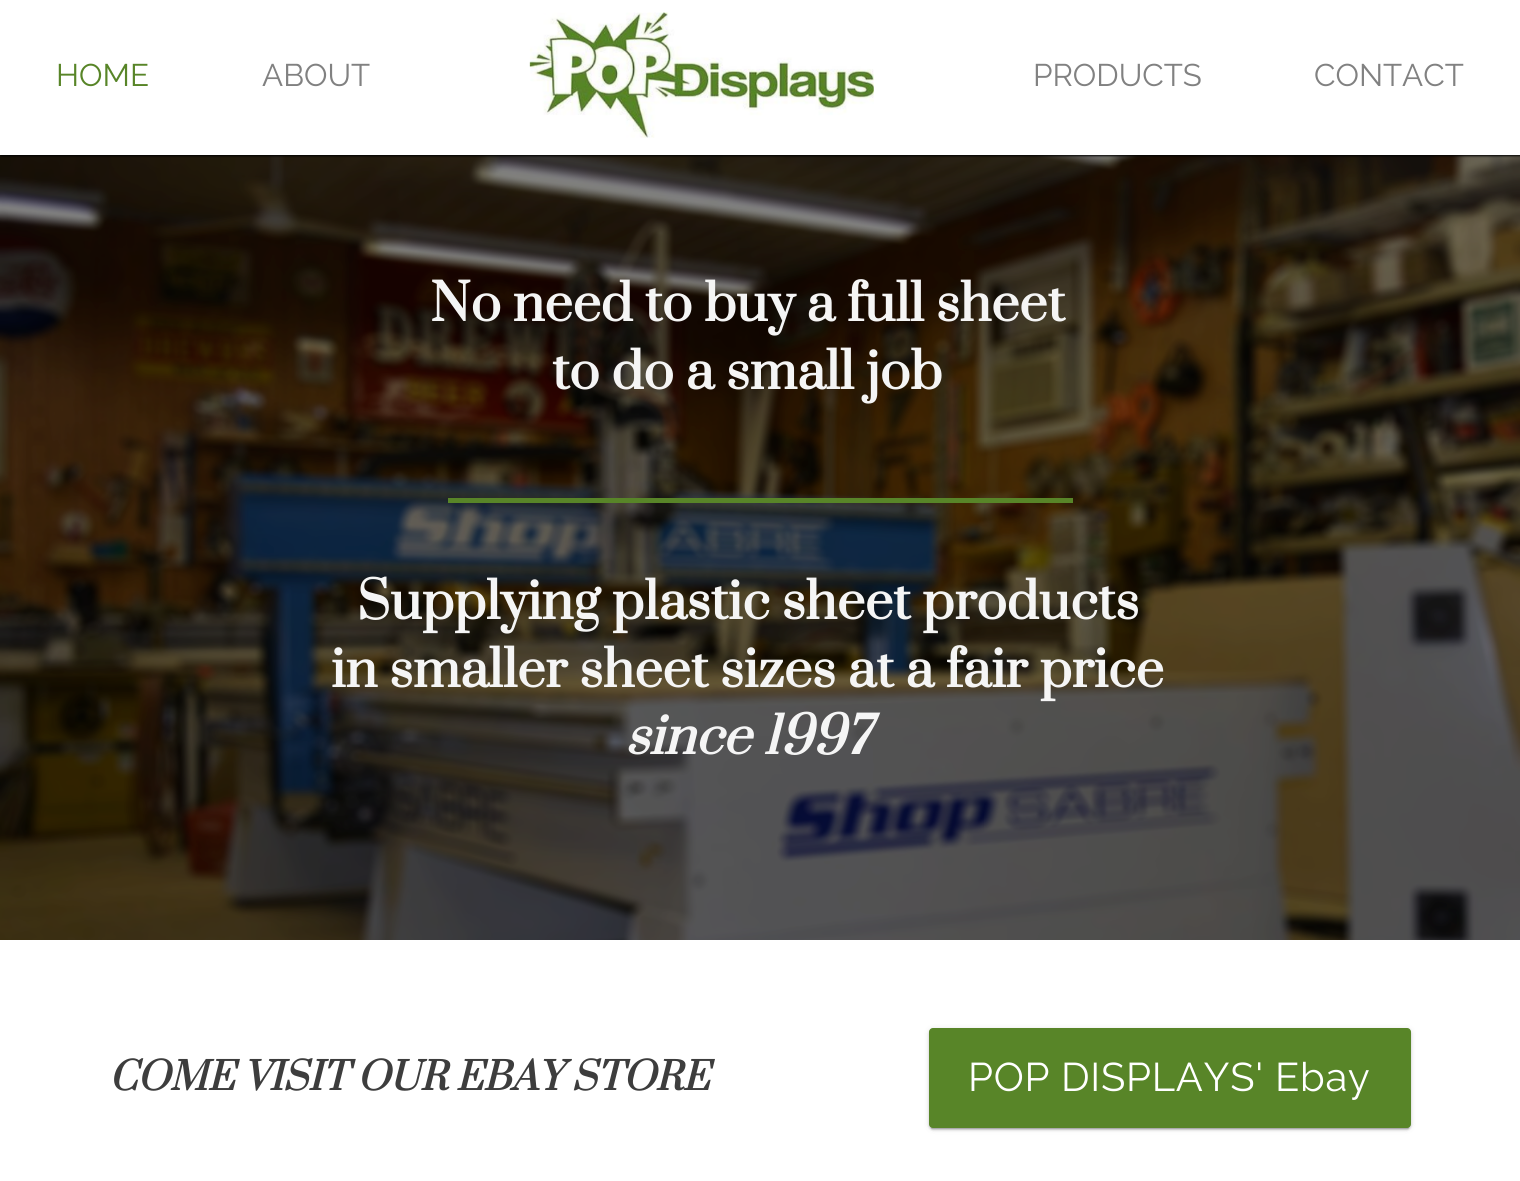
import math
import cairo

surface = cairo.ImageSurface(cairo.FORMAT_RGB24, 1520, 1181)
cr = cairo.Context(surface)
options = cairo.FontOptions()
options.set_hint_metrics(cairo.HINT_METRICS_OFF)
options.set_hint_style(cairo.HINT_STYLE_NONE)
cr.set_font_options(options)
cr.set_miter_limit(4)


def rgb(code):
    cr.set_source_rgb(*(v / 255 for v in bytes.fromhex(code[-6:])))


def tracked(x, y, s, letter, word):
    cr.move_to(x, y)
    for ch in s:
        cr.show_text(ch)
        cr.rel_move_to(letter + word * (ch == ' '), 0)


def rrect(x, y, w, h, r):
    cr.new_sub_path()
    for i, (u, v) in enumerate([(x + w - r, y + h - r), (x + r, y + h - r), (x + r, y + r), (x + w - r, y + r)]):
        cr.arc(u, v, r, i * math.pi / 2, (i + 1) * math.pi / 2)
    cr.close_path()


def soft_shadow(x, y, w, h, r, blur, alpha):
    cr.push_group_with_content(cairo.CONTENT_ALPHA)
    cr.set_operator(cairo.OPERATOR_SOURCE)
    for i in range(15, -16, -2):
        e = blur * i / 6
        if min(w, h) + 2 * e > 0:
            cr.set_source_rgba(0, 0, 0, alpha * math.erfc((i - 1) / 8.5) / 2)
            rrect(x - e, y - e, w + 2 * e, h + 2 * e, max(0, min(r + e + blur * .6, min(w, h) / 2 + e)))
            cr.fill()
    cr.mask(cr.pop_group())


def image(path, x, y, w, h):
    cr.save()
    cr.set_source_surface(cairo.ImageSurface.create_from_png(path), x, y)
    cr.rectangle(x, y, w, h)
    cr.fill()
    cr.restore()


rgb("#ffffff")
cr.paint()
image("img/2.png", 0, 155, 1520, 785)
rgb("#000000")
soft_shadow(1, 1, 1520, 155, 0, 1, 1)
rgb("#ffffff")
cr.rectangle(0, 0, 1520, 155)
cr.fill()
image("img/1.png", 529, 12, 345, 126)
rgb("#588528")
cr.rectangle(448, 498, 625, 5)
cr.fill()
rgb("#000000")
soft_shadow(931, 1034, 478, 95, 1, 0.5, 0.2)
soft_shadow(929, 1029, 482, 100, 4, 3, 0.12)
soft_shadow(929, 1030, 482, 100, 4, 1, 0.14)
rgb("#588528")
rrect(929, 1028, 482, 100, 4)
cr.fill()
cr.select_font_face("Raleway")
cr.set_font_size(31.25)
cr.move_to(56, 86)
cr.show_text("HOME")
rgb("#818181")
for x, y, s in [
    (262, 86, "ABOUT"),
    (1033, 86, "PRODUCTS"),
    (1314, 86, "CONTACT"),
]:
    cr.move_to(x, y)
    cr.show_text(s)
cr.select_font_face("Prata", cairo.FONT_SLANT_NORMAL, cairo.FONT_WEIGHT_BOLD)
cr.set_font_size(50)
rgb("#f5f5f5")
for x, y, s in [
    (430, 321, "No need to buy a full sheet"),
    (552, 389, "to do a small job"),
    (357, 619, "Supplying plastic sheet products"),
    (331, 687, "in smaller sheet sizes at a fair price"),
]:
    cr.move_to(x, y)
    cr.show_text(s)
cr.select_font_face("Prata", cairo.FONT_SLANT_ITALIC, cairo.FONT_WEIGHT_BOLD)
cr.move_to(625, 754)
cr.show_text("since 1997")
cr.set_font_size(37.5)
rgb("#3d3d3d")
cr.move_to(109, 1090)
cr.show_text("COME VISIT OUR EBAY STORE")
cr.select_font_face("Raleway")
cr.set_font_size(40)
rgb("#ffffff")
tracked(968, 1091, "POP DISPLAYS' Ebay", 0.75, 0)
surface.write_to_png("page.png")
